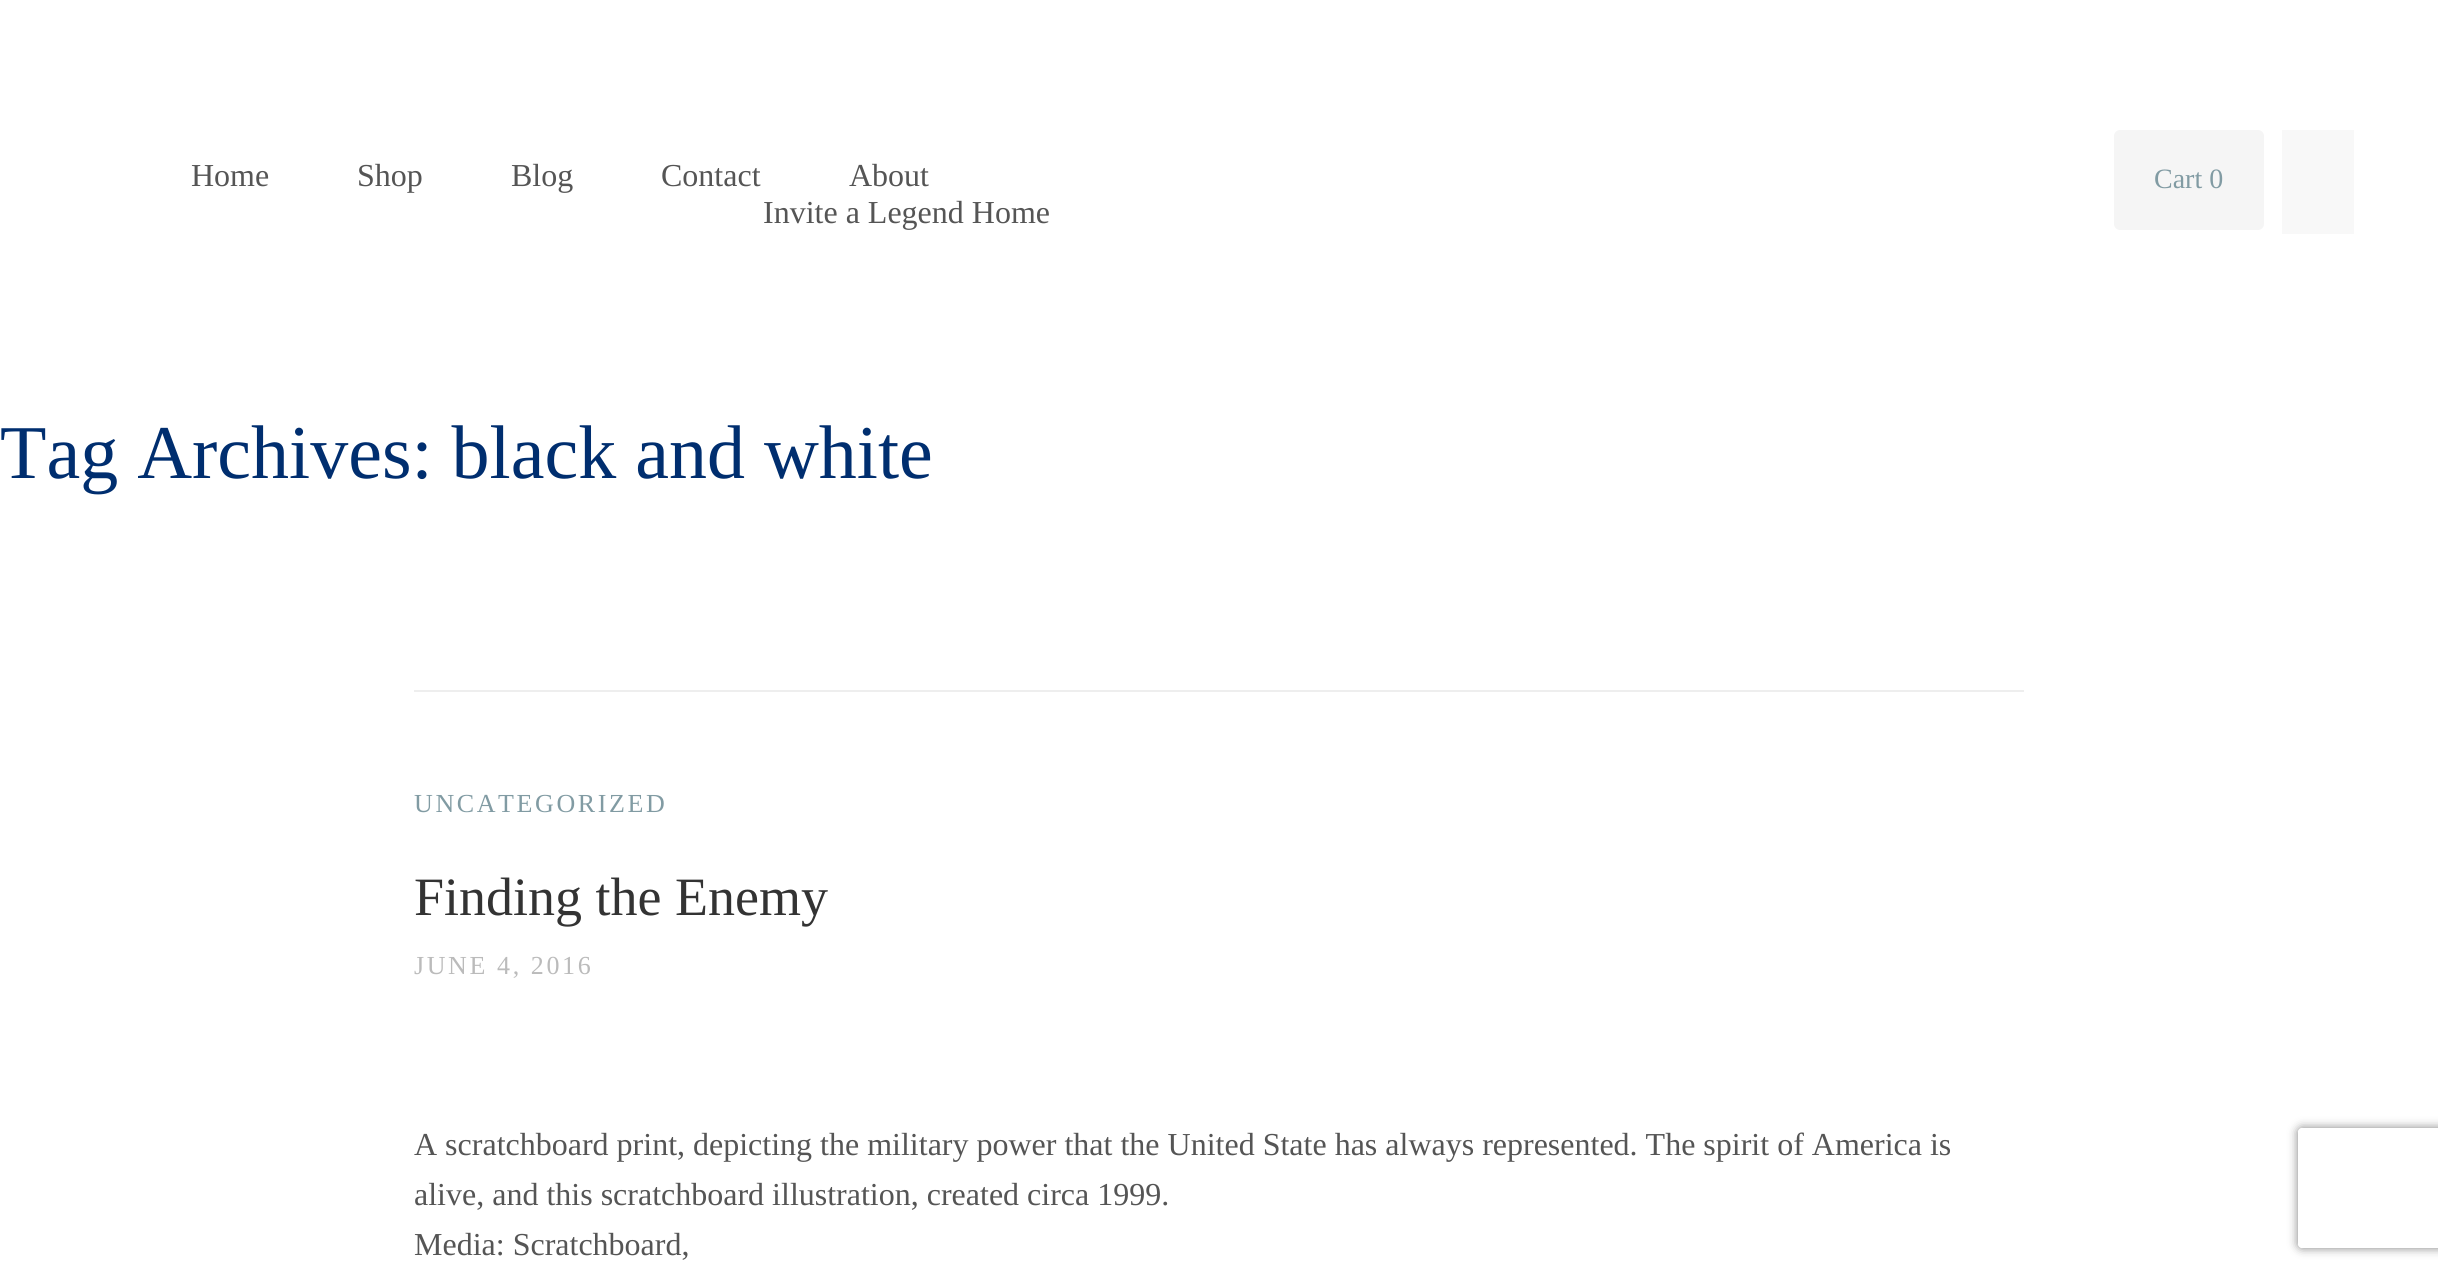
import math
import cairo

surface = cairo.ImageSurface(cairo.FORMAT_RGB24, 2438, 1275)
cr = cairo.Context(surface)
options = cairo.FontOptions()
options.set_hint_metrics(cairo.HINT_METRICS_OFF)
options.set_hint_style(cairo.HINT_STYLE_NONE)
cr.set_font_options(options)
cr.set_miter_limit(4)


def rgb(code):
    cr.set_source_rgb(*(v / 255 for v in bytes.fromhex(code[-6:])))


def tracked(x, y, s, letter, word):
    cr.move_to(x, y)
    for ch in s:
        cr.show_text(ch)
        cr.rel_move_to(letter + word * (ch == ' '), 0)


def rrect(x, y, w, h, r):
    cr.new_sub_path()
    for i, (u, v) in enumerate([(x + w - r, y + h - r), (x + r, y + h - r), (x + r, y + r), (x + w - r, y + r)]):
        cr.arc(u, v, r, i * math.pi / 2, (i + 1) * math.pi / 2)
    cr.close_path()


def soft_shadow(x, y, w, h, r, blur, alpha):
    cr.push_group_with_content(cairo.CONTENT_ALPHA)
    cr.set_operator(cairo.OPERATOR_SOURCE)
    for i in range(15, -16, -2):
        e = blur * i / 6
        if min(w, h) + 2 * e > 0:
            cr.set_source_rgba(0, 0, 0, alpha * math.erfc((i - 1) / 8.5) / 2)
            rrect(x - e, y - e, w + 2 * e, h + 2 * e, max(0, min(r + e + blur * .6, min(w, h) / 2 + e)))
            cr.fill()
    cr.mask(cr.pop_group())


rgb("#ffffff")
cr.paint()
rgb("#f5f5f5")
rrect(2114, 130, 150, 100, 6)
cr.fill()
rgb("#f8f8f8")
cr.rectangle(2282, 130, 72, 104)
cr.fill()
rgb("#eeeeee")
cr.rectangle(414, 690, 1610, 2)
cr.fill()
cr.save()
cr.set_fill_rule(cairo.FILL_RULE_EVEN_ODD)
cr.new_path()
cr.move_to(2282, 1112)
cr.line_to(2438, 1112)
cr.line_to(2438, 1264)
cr.line_to(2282, 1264)
cr.close_path()
cr.move_to(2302, 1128)
cr.line_to(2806, 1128)
cr.curve_to(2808, 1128, 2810, 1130, 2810, 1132)
cr.line_to(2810, 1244)
cr.curve_to(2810, 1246, 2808, 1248, 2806, 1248)
cr.line_to(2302, 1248)
cr.curve_to(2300, 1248, 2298, 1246, 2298, 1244)
cr.line_to(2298, 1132)
cr.curve_to(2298, 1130, 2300, 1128, 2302, 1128)
cr.close_path()
cr.clip()
rgb("#808080")
soft_shadow(2298, 1128, 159, 120, 4, 5, 1)
cr.restore()
cr.select_font_face("Liberation Serif")
cr.set_font_size(32)
rgb("#555555")
for x, y, s in [
    (191, 186, "Home"),
    (357, 186, "Shop"),
    (511, 186, "Blog"),
    (661, 186, "Contact"),
    (849, 186, "About"),
]:
    cr.move_to(x, y)
    cr.show_text(s)
cr.set_font_size(28)
rgb("#819ba3")
cr.move_to(2154, 188)
cr.show_text("Cart 0")
cr.set_font_size(32)
rgb("#555555")
cr.move_to(763, 223)
cr.show_text("Invite a Legend Home")
cr.set_font_size(76)
rgb("#002e6f")
cr.move_to(0, 478)
cr.show_text("Tag Archives: black and white")
cr.set_font_size(26)
rgb("#819ba3")
tracked(414, 812, "UNCATEGORIZED", 2.6, 0)
cr.set_font_size(54)
rgb("#333333")
cr.move_to(414, 915)
cr.show_text("Finding the Enemy")
cr.set_font_size(26)
rgb("#bbbbbb")
tracked(414, 974, "JUNE 4, 2016", 2.6, 0)
cr.set_font_size(32)
rgb("#555555")
for x, y, s in [
    (414, 1155, "A scratchboard print, depicting the military power that the United State has always represented. The spirit of America is"),
    (414, 1205, "alive, and this scratchboard illustration, created circa 1999."),
    (414, 1255, "Media: Scratchboard,"),
]:
    cr.move_to(x, y)
    cr.show_text(s)
surface.write_to_png("page.png")
